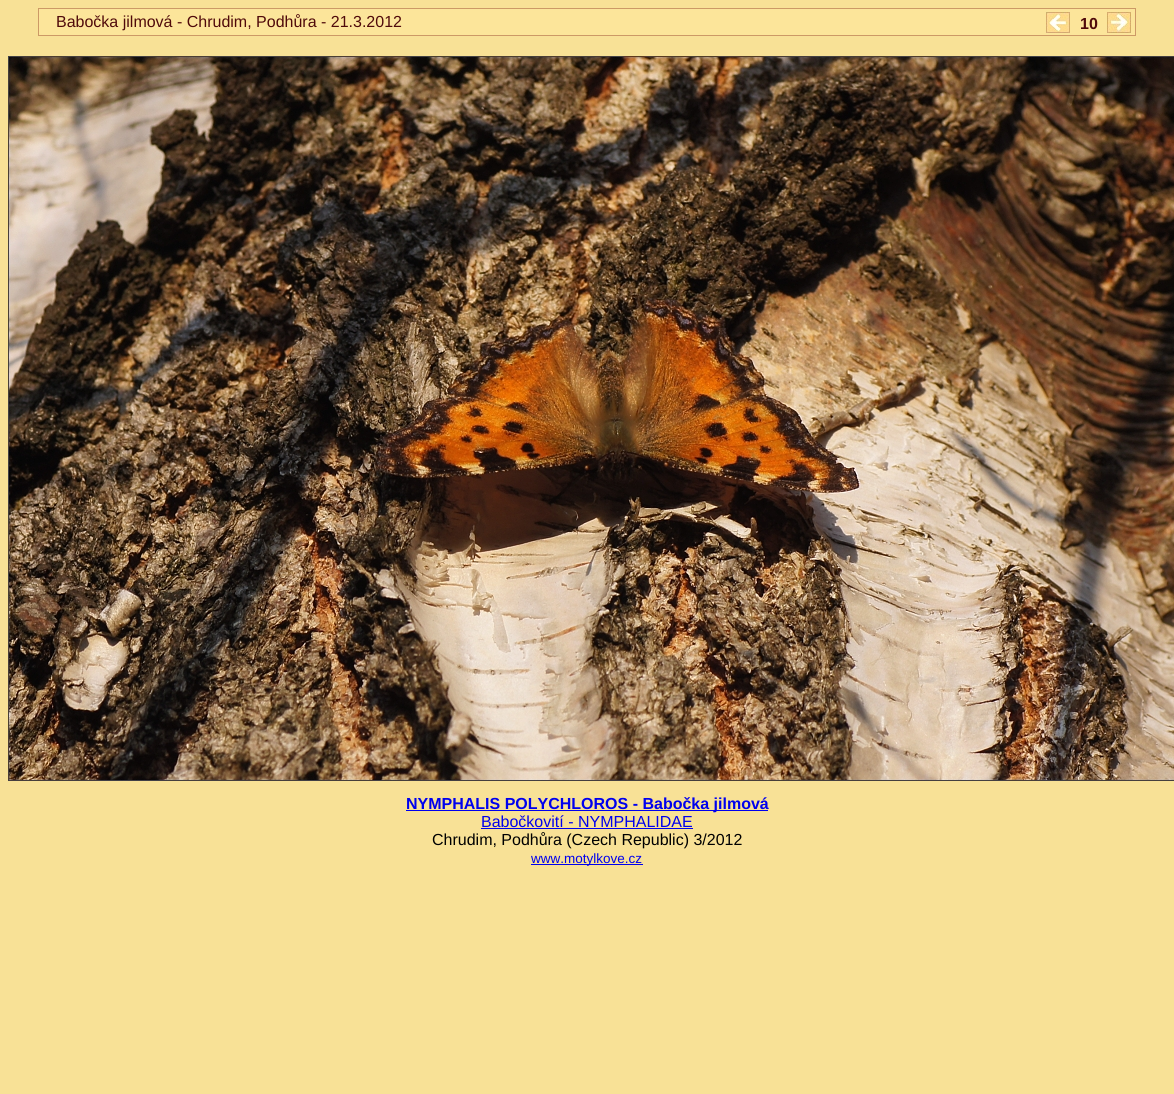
import math
import cairo

surface = cairo.ImageSurface(cairo.FORMAT_RGB24, 1174, 1094)
cr = cairo.Context(surface)
options = cairo.FontOptions()
options.set_hint_metrics(cairo.HINT_METRICS_OFF)
options.set_hint_style(cairo.HINT_STYLE_NONE)
cr.set_font_options(options)
cr.set_miter_limit(4)


def rgb(code):
    cr.set_source_rgb(*(v / 255 for v in bytes.fromhex(code[-6:])))


def image(path, x, y, w, h):
    cr.save()
    cr.set_source_surface(cairo.ImageSurface.create_from_png(path), x, y)
    cr.rectangle(x, y, w, h)
    cr.fill()
    cr.restore()


rgb("#f8e196")
cr.paint()
cr.rectangle(38.5, 8.5, 1097, 27)
rgb("#cc9966")
cr.set_line_width(1)
cr.stroke()
rgb("#fce59a")
cr.rectangle(39, 9, 1096, 26)
cr.fill()
image("img/1.png", 1046, 12, 24, 21)
image("img/2.png", 1107, 12, 24, 21)
image("img/3.png", 8, 56, 1166, 725)
for x, y, w, h, color in [
    (406, 810, 362, 1, "#0000ee"),
    (481, 828, 212, 1, "#0000ee"),
    (531, 864, 112, 1, "#0000ee"),
]:
    rgb(color)
    cr.rectangle(x, y, w, h)
    cr.fill()
cr.select_font_face("Liberation Sans")
cr.set_font_size(16)
rgb("#500a0a")
cr.move_to(56, 27)
cr.show_text("Babočka jilmová - Chrudim, Podhůra - 21.3.2012")
cr.select_font_face("Liberation Sans", cairo.FONT_SLANT_NORMAL, cairo.FONT_WEIGHT_BOLD)
cr.move_to(1080, 29)
cr.show_text("10")
rgb("#0000ee")
cr.move_to(406, 809)
cr.show_text("NYMPHALIS POLYCHLOROS - Babočka jilmová")
cr.select_font_face("Liberation Sans")
cr.move_to(481, 827)
cr.show_text("Babočkovití - NYMPHALIDAE")
rgb("#000000")
cr.move_to(432, 845)
cr.show_text("Chrudim, Podhůra (Czech Republic) 3/2012")
cr.set_font_size(13.5)
rgb("#0000ee")
cr.move_to(531, 863)
cr.show_text("www.motylkove.cz")
surface.write_to_png("page.png")
